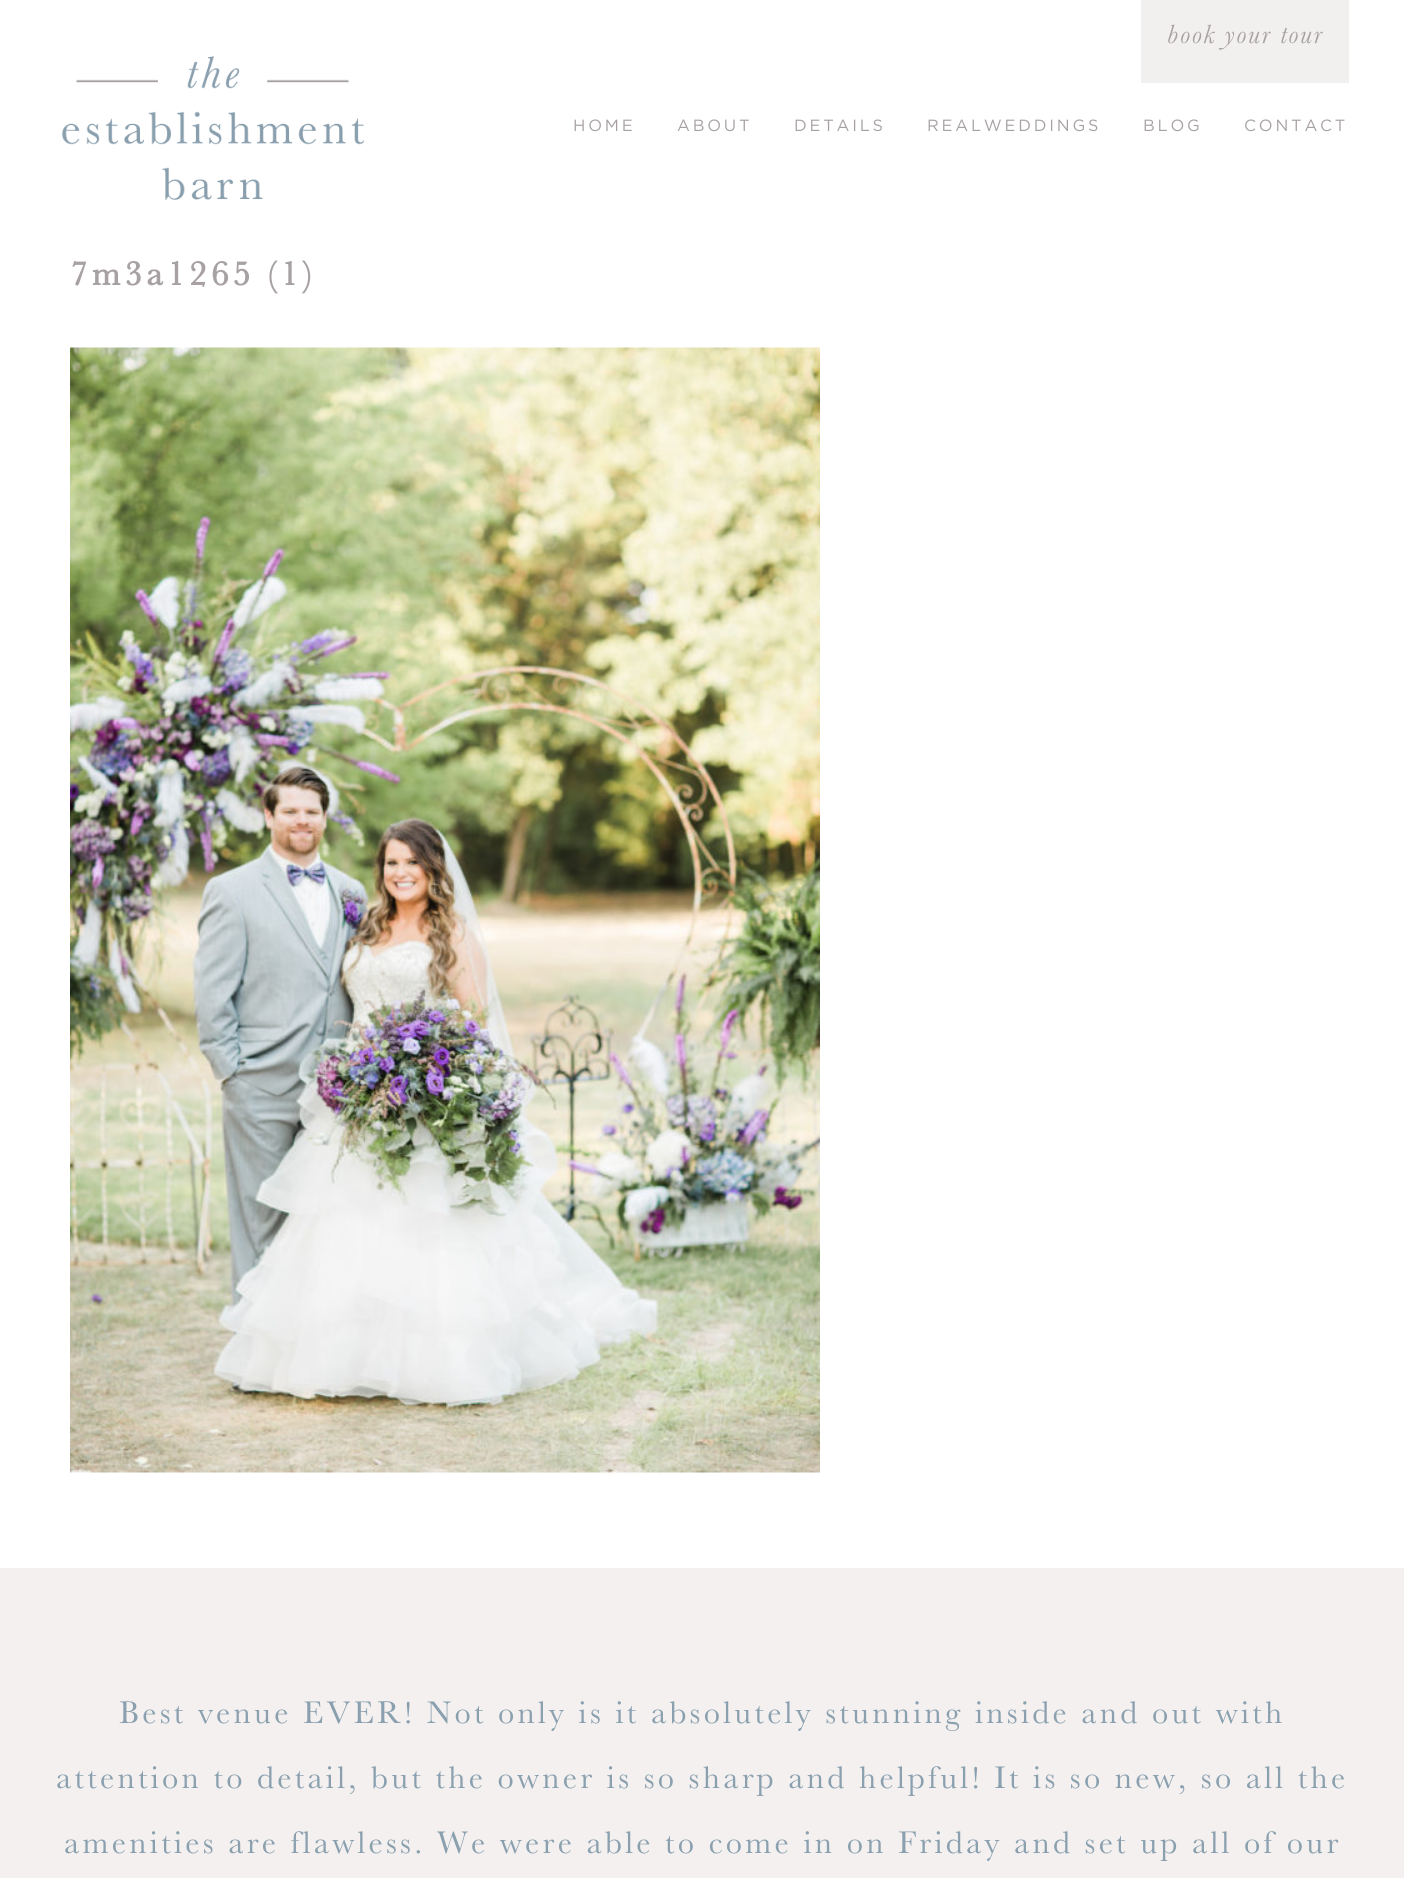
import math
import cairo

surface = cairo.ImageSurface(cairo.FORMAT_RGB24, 1404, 1878)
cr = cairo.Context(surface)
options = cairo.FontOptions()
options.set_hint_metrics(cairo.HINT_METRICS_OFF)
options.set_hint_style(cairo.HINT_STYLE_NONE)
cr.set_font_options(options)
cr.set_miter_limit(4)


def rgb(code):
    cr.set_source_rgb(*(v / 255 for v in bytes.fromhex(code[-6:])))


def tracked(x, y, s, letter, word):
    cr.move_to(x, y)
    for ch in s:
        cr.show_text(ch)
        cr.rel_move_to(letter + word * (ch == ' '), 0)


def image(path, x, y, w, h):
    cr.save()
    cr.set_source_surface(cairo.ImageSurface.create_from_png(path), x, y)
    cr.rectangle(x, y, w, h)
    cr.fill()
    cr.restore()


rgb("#ffffff")
cr.paint()
rgb("#f2f0ee")
cr.rectangle(1141, 0, 208, 83)
cr.fill()
image("img/1.png", 61, 56, 304, 144)
image("img/2.png", 70, 347, 750, 1126)
rgb("#f3f0ef")
cr.rectangle(0, 1568, 1404, 310)
cr.fill()
cr.select_font_face("Baskerville", cairo.FONT_SLANT_ITALIC)
cr.set_font_size(27.5)
rgb("#a7a1a4")
tracked(1167, 43, "book your tour", 1.75, 0)
cr.select_font_face("Gotham")
cr.set_font_size(16.25)
for x, y, s in [
    (573, 131, "HOME"),
    (677, 131, "ABOUT"),
    (794, 131, "DETAILS"),
    (927, 131, "REALWEDDINGS"),
    (1143, 131, "BLOG"),
    (1244, 131, "CONTACT"),
]:
    tracked(x, y, s, 2.8, 0)
cr.select_font_face("Baskerville", cairo.FONT_SLANT_NORMAL, cairo.FONT_WEIGHT_BOLD)
cr.set_font_size(35)
tracked(70, 285, "7m3a1265 (1)", 4.4, 0)
cr.select_font_face("Baskerville")
cr.set_font_size(32.5)
rgb("#8aa0af")
for x, y, s in [
    (119, 1723, "Best venue EVER! Not only is it absolutely stunning inside and out with"),
    (56, 1788, "attention to detail, but the owner is so sharp and helpful! It is so new, so all the"),
    (64, 1853, "amenities are flawless. We were able to come in on Friday and set up all of our"),
]:
    tracked(x, y, s, 3.25, 0)
surface.write_to_png("page.png")
